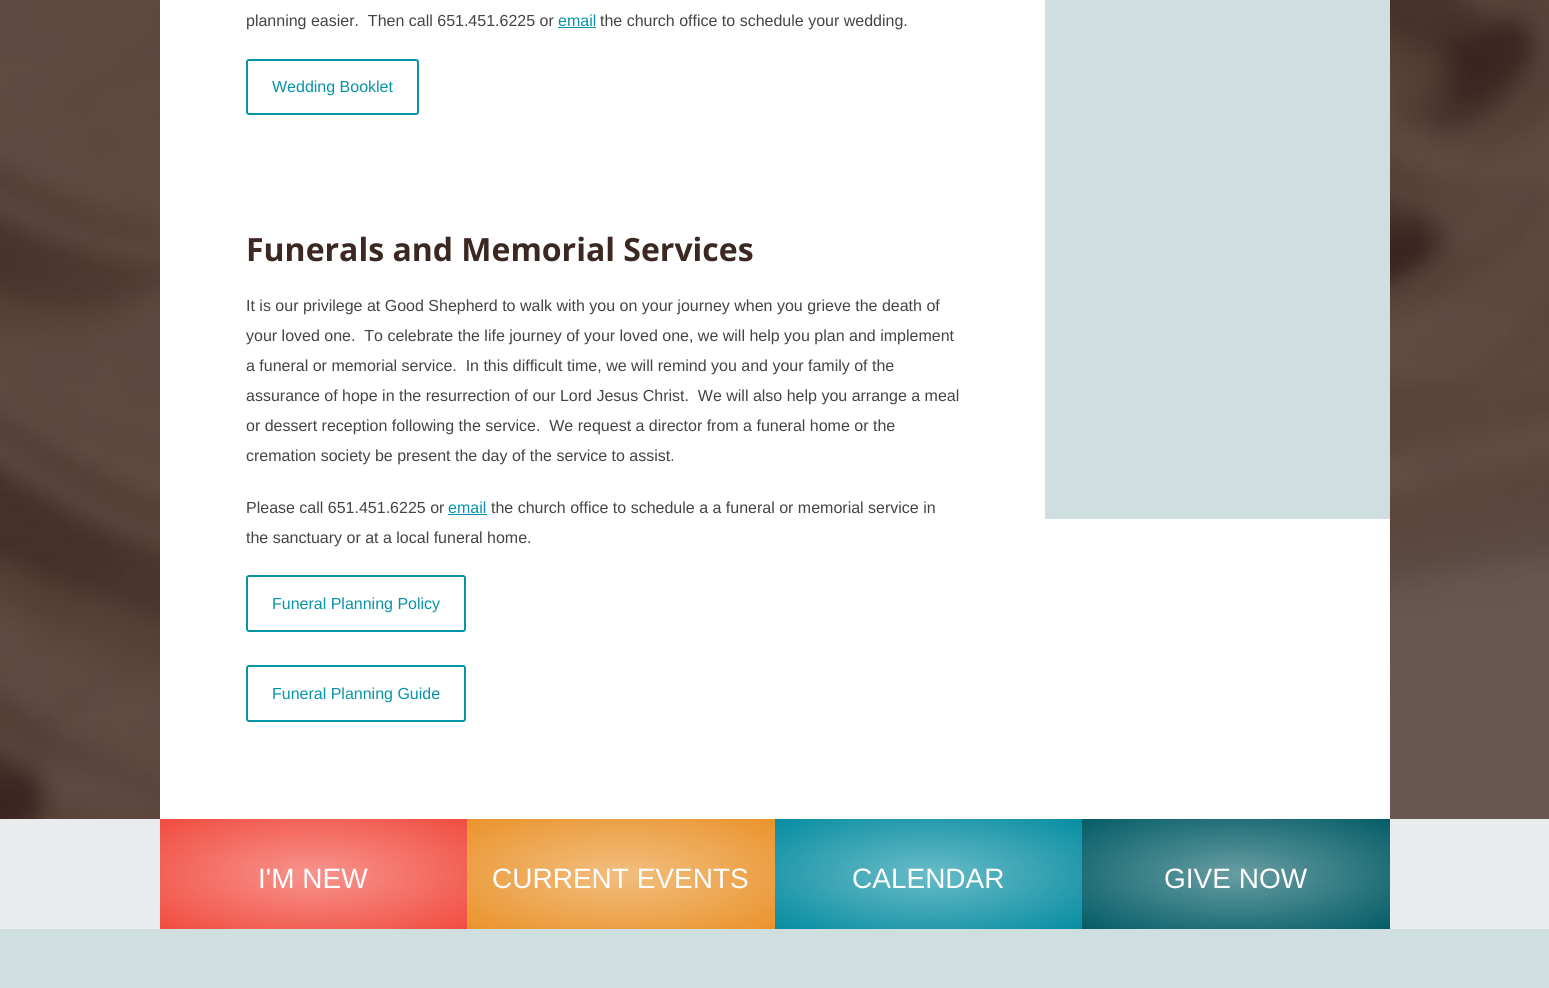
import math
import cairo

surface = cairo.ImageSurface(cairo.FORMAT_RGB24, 1549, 988)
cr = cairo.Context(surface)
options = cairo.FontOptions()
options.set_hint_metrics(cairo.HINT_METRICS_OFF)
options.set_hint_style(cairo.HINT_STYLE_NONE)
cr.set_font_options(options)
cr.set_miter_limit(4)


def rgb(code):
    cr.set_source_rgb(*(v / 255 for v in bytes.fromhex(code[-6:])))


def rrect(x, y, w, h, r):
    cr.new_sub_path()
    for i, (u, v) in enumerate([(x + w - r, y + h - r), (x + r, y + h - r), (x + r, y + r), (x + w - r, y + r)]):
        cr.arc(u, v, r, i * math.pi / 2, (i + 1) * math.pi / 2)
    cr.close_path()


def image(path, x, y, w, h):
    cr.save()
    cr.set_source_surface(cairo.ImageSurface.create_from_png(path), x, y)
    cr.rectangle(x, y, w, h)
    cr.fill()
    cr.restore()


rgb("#cfdede")
cr.paint()
image("img/1.png", 0, 0, 1549, 819)
rgb("#ffffff")
cr.rectangle(160, 0, 1230, 819)
cr.fill()
rgb("#0793a7")
cr.rectangle(558, 27, 38, 1)
cr.fill()
rrect(247, 60, 171, 54, 2)
cr.stroke()
cr.rectangle(448, 514, 39, 1)
cr.fill()
rrect(247, 576, 218, 55, 2)
cr.stroke()
rrect(247, 666, 218, 55, 2)
cr.stroke()
rgb("#cfdede")
cr.rectangle(1045, 0, 345, 519)
cr.fill()
rgb("#e8ecec")
cr.rectangle(0, 819, 1549, 110)
cr.fill()
gradient = cairo.RadialGradient(0, 0, 0, 0, 0, 1)
gradient.set_matrix(cairo.Matrix(1 / 217, 0, 0, 1 / 78, -1 * 314 / 217, -1 * 874 / 78))
gradient.add_color_stop_rgba(0, 0.969, 0.58, 0.549, 1)
gradient.add_color_stop_rgba(1, 0.945, 0.298, 0.251, 1)
cr.set_source(gradient)
cr.rectangle(160, 819, 307, 110)
cr.fill()
gradient = cairo.RadialGradient(0, 0, 0, 0, 0, 1)
gradient.set_matrix(cairo.Matrix(1 / 218, 0, 0, 1 / 78, -1 * 621 / 218, -1 * 874 / 78))
gradient.add_color_stop_rgba(0, 0.949, 0.745, 0.502, 1)
gradient.add_color_stop_rgba(1, 0.918, 0.576, 0.169, 1)
cr.set_source(gradient)
cr.rectangle(467, 819, 308, 110)
cr.fill()
gradient = cairo.RadialGradient(0, 0, 0, 0, 0, 1)
gradient.set_matrix(cairo.Matrix(1 / 217, 0, 0, 1 / 78, -1 * 929 / 217, -1 * 874 / 78))
gradient.add_color_stop_rgba(0, 0.416, 0.733, 0.78, 1)
gradient.add_color_stop_rgba(1, 0.027, 0.553, 0.635, 1)
cr.set_source(gradient)
cr.rectangle(775, 819, 307, 110)
cr.fill()
gradient = cairo.RadialGradient(0, 0, 0, 0, 0, 1)
gradient.set_matrix(cairo.Matrix(1 / 218, 0, 0, 1 / 78, -1 * 1236 / 218, -1 * 874 / 78))
gradient.add_color_stop_rgba(0, 0.408, 0.616, 0.639, 1)
gradient.add_color_stop_rgba(1, 0.012, 0.361, 0.4, 1)
cr.set_source(gradient)
cr.rectangle(1082, 819, 308, 110)
cr.fill()
cr.select_font_face("Liberation Sans")
cr.set_font_size(16)
rgb("#444444")
cr.move_to(246, 26)
cr.show_text("planning easier.  Then call 651.451.6225 or")
rgb("#0793a7")
cr.move_to(558, 26)
cr.show_text("email")
rgb("#444444")
cr.move_to(600, 26)
cr.show_text("the church office to schedule your wedding.")
rgb("#0793a7")
cr.move_to(272, 92)
cr.show_text("Wedding Booklet")
cr.select_font_face("Open Sans", cairo.FONT_SLANT_NORMAL, cairo.FONT_WEIGHT_BOLD)
cr.set_font_size(32)
rgb("#3c2822")
cr.move_to(246, 261)
cr.show_text("Funerals and Memorial Services")
cr.select_font_face("Liberation Sans")
cr.set_font_size(16)
rgb("#444444")
for x, y, s in [
    (246, 311, "It is our privilege at Good Shepherd to walk with you on your journey when you grieve the death of"),
    (246, 341, "your loved one.  To celebrate the life journey of your loved one, we will help you plan and implement"),
    (246, 371, "a funeral or memorial service.  In this difficult time, we will remind you and your family of the"),
    (246, 401, "assurance of hope in the resurrection of our Lord Jesus Christ.  We will also help you arrange a meal"),
    (246, 431, "or dessert reception following the service.  We request a director from a funeral home or the"),
    (246, 461, "cremation society be present the day of the service to assist."),
    (246, 513, "Please call 651.451.6225 or"),
]:
    cr.move_to(x, y)
    cr.show_text(s)
rgb("#0793a7")
cr.move_to(448, 513)
cr.show_text("email")
rgb("#444444")
cr.move_to(491, 513)
cr.show_text("the church office to schedule a a funeral or memorial service in")
cr.move_to(246, 543)
cr.show_text("the sanctuary or at a local funeral home.")
rgb("#0793a7")
cr.move_to(272, 609)
cr.show_text("Funeral Planning Policy")
cr.move_to(272, 699)
cr.show_text("Funeral Planning Guide")
cr.set_font_size(28)
rgb("#ffffff")
for x, y, s in [
    (258, 888, "I'M NEW"),
    (492, 888, "CURRENT EVENTS"),
    (852, 888, "CALENDAR"),
    (1164, 888, "GIVE NOW"),
]:
    cr.move_to(x, y)
    cr.show_text(s)
surface.write_to_png("page.png")
